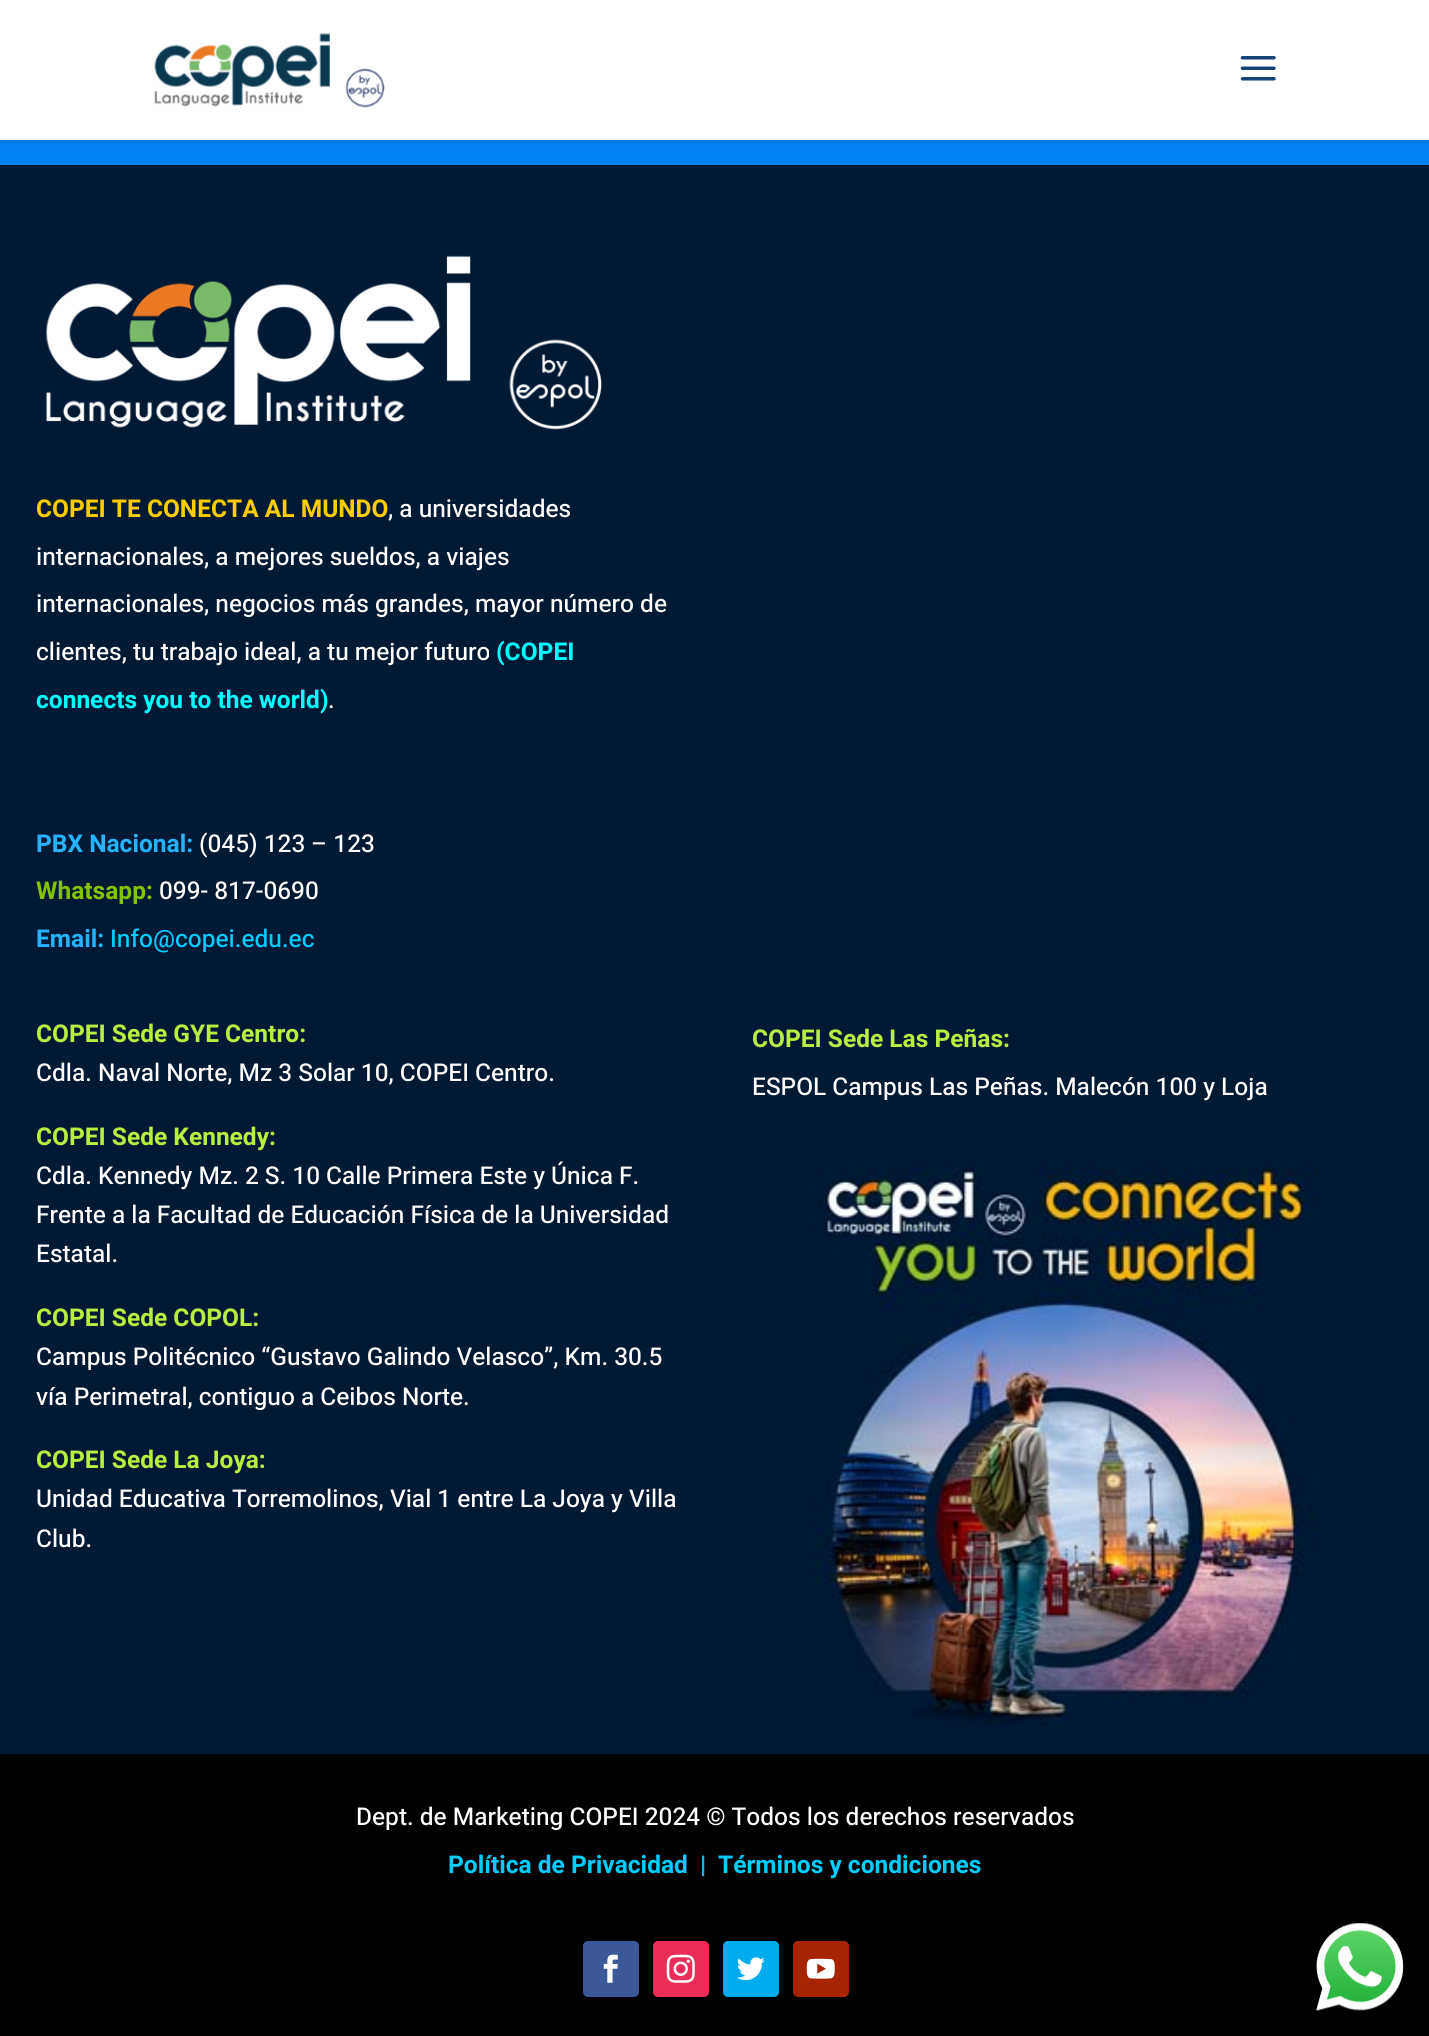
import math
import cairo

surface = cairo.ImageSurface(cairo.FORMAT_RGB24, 1429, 2036)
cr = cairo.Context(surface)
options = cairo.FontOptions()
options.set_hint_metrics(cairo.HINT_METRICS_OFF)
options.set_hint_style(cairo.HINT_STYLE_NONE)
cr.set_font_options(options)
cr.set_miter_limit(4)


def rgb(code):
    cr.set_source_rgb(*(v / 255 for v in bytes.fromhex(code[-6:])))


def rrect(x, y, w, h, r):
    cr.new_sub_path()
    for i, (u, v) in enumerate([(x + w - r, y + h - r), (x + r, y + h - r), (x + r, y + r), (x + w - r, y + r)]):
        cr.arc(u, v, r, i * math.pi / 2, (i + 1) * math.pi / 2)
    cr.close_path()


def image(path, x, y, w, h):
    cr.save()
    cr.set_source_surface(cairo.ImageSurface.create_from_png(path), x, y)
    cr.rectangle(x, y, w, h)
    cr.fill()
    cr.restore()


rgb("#ffffff")
cr.paint()
rgb("#0173d9")
cr.new_path()
cr.move_to(0, 140)
cr.line_to(0, 142)
cr.line_to(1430, 142)
cr.line_to(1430, 2)
cr.line_to(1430, 140)
cr.close_path()
cr.fill()
image("img/1.png", 154, 33, 231, 75)
image("img/2.png", 1240, 56, 36, 25)
gradient = cairo.LinearGradient(715, -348, 715, 165)
gradient.add_color_stop_rgba(0, 0.086, 0.259, 0.459, 1)
gradient.add_color_stop_rgba(1, 0, 0.514, 0.969, 1)
cr.set_source(gradient)
cr.rectangle(0, 142, 1429, 23)
cr.fill()
rgb("#001a35")
cr.rectangle(0, 165, 1429, 1589)
cr.fill()
image("img/3.png", 46, 255, 556, 175)
image("img/4.png", 814, 1166, 505, 562)
rgb("#000000")
cr.rectangle(0, 1754, 1429, 282)
cr.fill()
rgb("#3b5998")
rrect(583, 1941, 56, 56, 5)
cr.fill()
image("img/5.png", 603, 1954, 15, 29)
rgb("#ea2c59")
rrect(653, 1941, 56, 56, 5)
cr.fill()
image("img/6.png", 666, 1954, 29, 29)
rgb("#00aced")
rrect(723, 1941, 56, 56, 5)
cr.fill()
image("img/7.png", 737, 1957, 28, 24)
rgb("#a82400")
rrect(793, 1941, 56, 56, 5)
cr.fill()
image("img/8.png", 806, 1958, 29, 21)
image("img/9.png", 1316, 1923, 88, 89)
cr.select_font_face("Heebo", cairo.FONT_SLANT_NORMAL, cairo.FONT_WEIGHT_BOLD)
cr.set_font_size(24.5)
rgb("#ffcc00")
cr.move_to(36, 517)
cr.show_text("COPEI TE CONECTA AL MUNDO")
cr.select_font_face("Heebo Medium")
rgb("#ffffff")
for x, y, s in [
    (388, 517, ", a universidades"),
    (36, 565, "internacionales, a mejores sueldos, a viajes"),
    (36, 612, "internacionales, negocios más grandes, mayor número de"),
    (36, 660, "clientes, tu trabajo ideal, a tu mejor futuro"),
]:
    cr.move_to(x, y)
    cr.show_text(s)
cr.select_font_face("Heebo", cairo.FONT_SLANT_NORMAL, cairo.FONT_WEIGHT_BOLD)
rgb("#00ffff")
cr.move_to(496, 660)
cr.show_text("(COPEI")
cr.move_to(36, 708)
cr.show_text("connects you to the world)")
cr.select_font_face("Heebo Medium")
rgb("#ffffff")
cr.move_to(328, 708)
cr.show_text(".")
cr.select_font_face("Heebo", cairo.FONT_SLANT_NORMAL, cairo.FONT_WEIGHT_BOLD)
rgb("#24b4ff")
cr.move_to(36, 852)
cr.show_text("PBX Nacional:")
cr.select_font_face("Heebo Medium")
rgb("#ffffff")
cr.move_to(199, 852)
cr.show_text("(045) 123 – 123")
cr.select_font_face("Heebo", cairo.FONT_SLANT_NORMAL, cairo.FONT_WEIGHT_BOLD)
rgb("#80c300")
cr.move_to(36, 899)
cr.show_text("Whatsapp:")
cr.select_font_face("Heebo Medium")
rgb("#ffffff")
cr.move_to(159, 899)
cr.show_text("099- 817-0690")
cr.select_font_face("Heebo", cairo.FONT_SLANT_NORMAL, cairo.FONT_WEIGHT_BOLD)
rgb("#24b4ff")
cr.move_to(36, 947)
cr.show_text("Email:")
cr.select_font_face("Heebo Medium")
rgb("#00ccff")
cr.move_to(110, 947)
cr.show_text("Info@copei.edu.ec")
cr.select_font_face("Heebo", cairo.FONT_SLANT_NORMAL, cairo.FONT_WEIGHT_BOLD)
rgb("#b4ef42")
cr.move_to(36, 1042)
cr.show_text("COPEI Sede GYE Centro:")
cr.select_font_face("Heebo Medium")
rgb("#ffffff")
cr.move_to(36, 1081)
cr.show_text("Cdla. Naval Norte, Mz 3 Solar 10, COPEI Centro.")
cr.select_font_face("Heebo", cairo.FONT_SLANT_NORMAL, cairo.FONT_WEIGHT_BOLD)
rgb("#b4ef42")
cr.move_to(36, 1145)
cr.show_text("COPEI Sede Kennedy:")
cr.select_font_face("Heebo Medium")
rgb("#ffffff")
for x, y, s in [
    (36, 1184, "Cdla. Kennedy Mz. 2 S. 10 Calle Primera Este y Única F."),
    (36, 1223, "Frente a la Facultad de Educación Física de la Universidad"),
    (36, 1262, "Estatal."),
]:
    cr.move_to(x, y)
    cr.show_text(s)
cr.select_font_face("Heebo", cairo.FONT_SLANT_NORMAL, cairo.FONT_WEIGHT_BOLD)
rgb("#b4ef42")
cr.move_to(36, 1326)
cr.show_text("COPEI Sede COPOL:")
cr.select_font_face("Heebo Medium")
rgb("#ffffff")
cr.move_to(36, 1365)
cr.show_text("Campus Politécnico “Gustavo Galindo Velasco”, Km. 30.5")
cr.move_to(36, 1405)
cr.show_text("vía Perimetral, contiguo a Ceibos Norte.")
cr.select_font_face("Heebo", cairo.FONT_SLANT_NORMAL, cairo.FONT_WEIGHT_BOLD)
rgb("#b4ef42")
cr.move_to(36, 1468)
cr.show_text("COPEI Sede La Joya:")
cr.select_font_face("Heebo Medium")
rgb("#ffffff")
cr.move_to(36, 1507)
cr.show_text("Unidad Educativa Torremolinos, Vial 1 entre La Joya y Villa")
cr.move_to(36, 1547)
cr.show_text("Club.")
cr.select_font_face("Heebo", cairo.FONT_SLANT_NORMAL, cairo.FONT_WEIGHT_BOLD)
rgb("#b4ef42")
cr.move_to(752, 1047)
cr.show_text("COPEI Sede Las Peñas:")
cr.select_font_face("Heebo Medium")
rgb("#ffffff")
cr.move_to(752, 1095)
cr.show_text("ESPOL Campus Las Peñas. Malecón 100 y Loja")
cr.move_to(356, 1825)
cr.show_text("Dept. de Marketing COPEI 2024 © Todos los derechos reservados")
cr.select_font_face("Heebo", cairo.FONT_SLANT_NORMAL, cairo.FONT_WEIGHT_BOLD)
rgb("#00ccff")
cr.move_to(448, 1873)
cr.show_text("Política de Privacidad")
rgb("#24b4ff")
cr.move_to(700, 1873)
cr.show_text("|")
rgb("#00ccff")
cr.move_to(718, 1873)
cr.show_text("Términos y condiciones")
surface.write_to_png("page.png")
